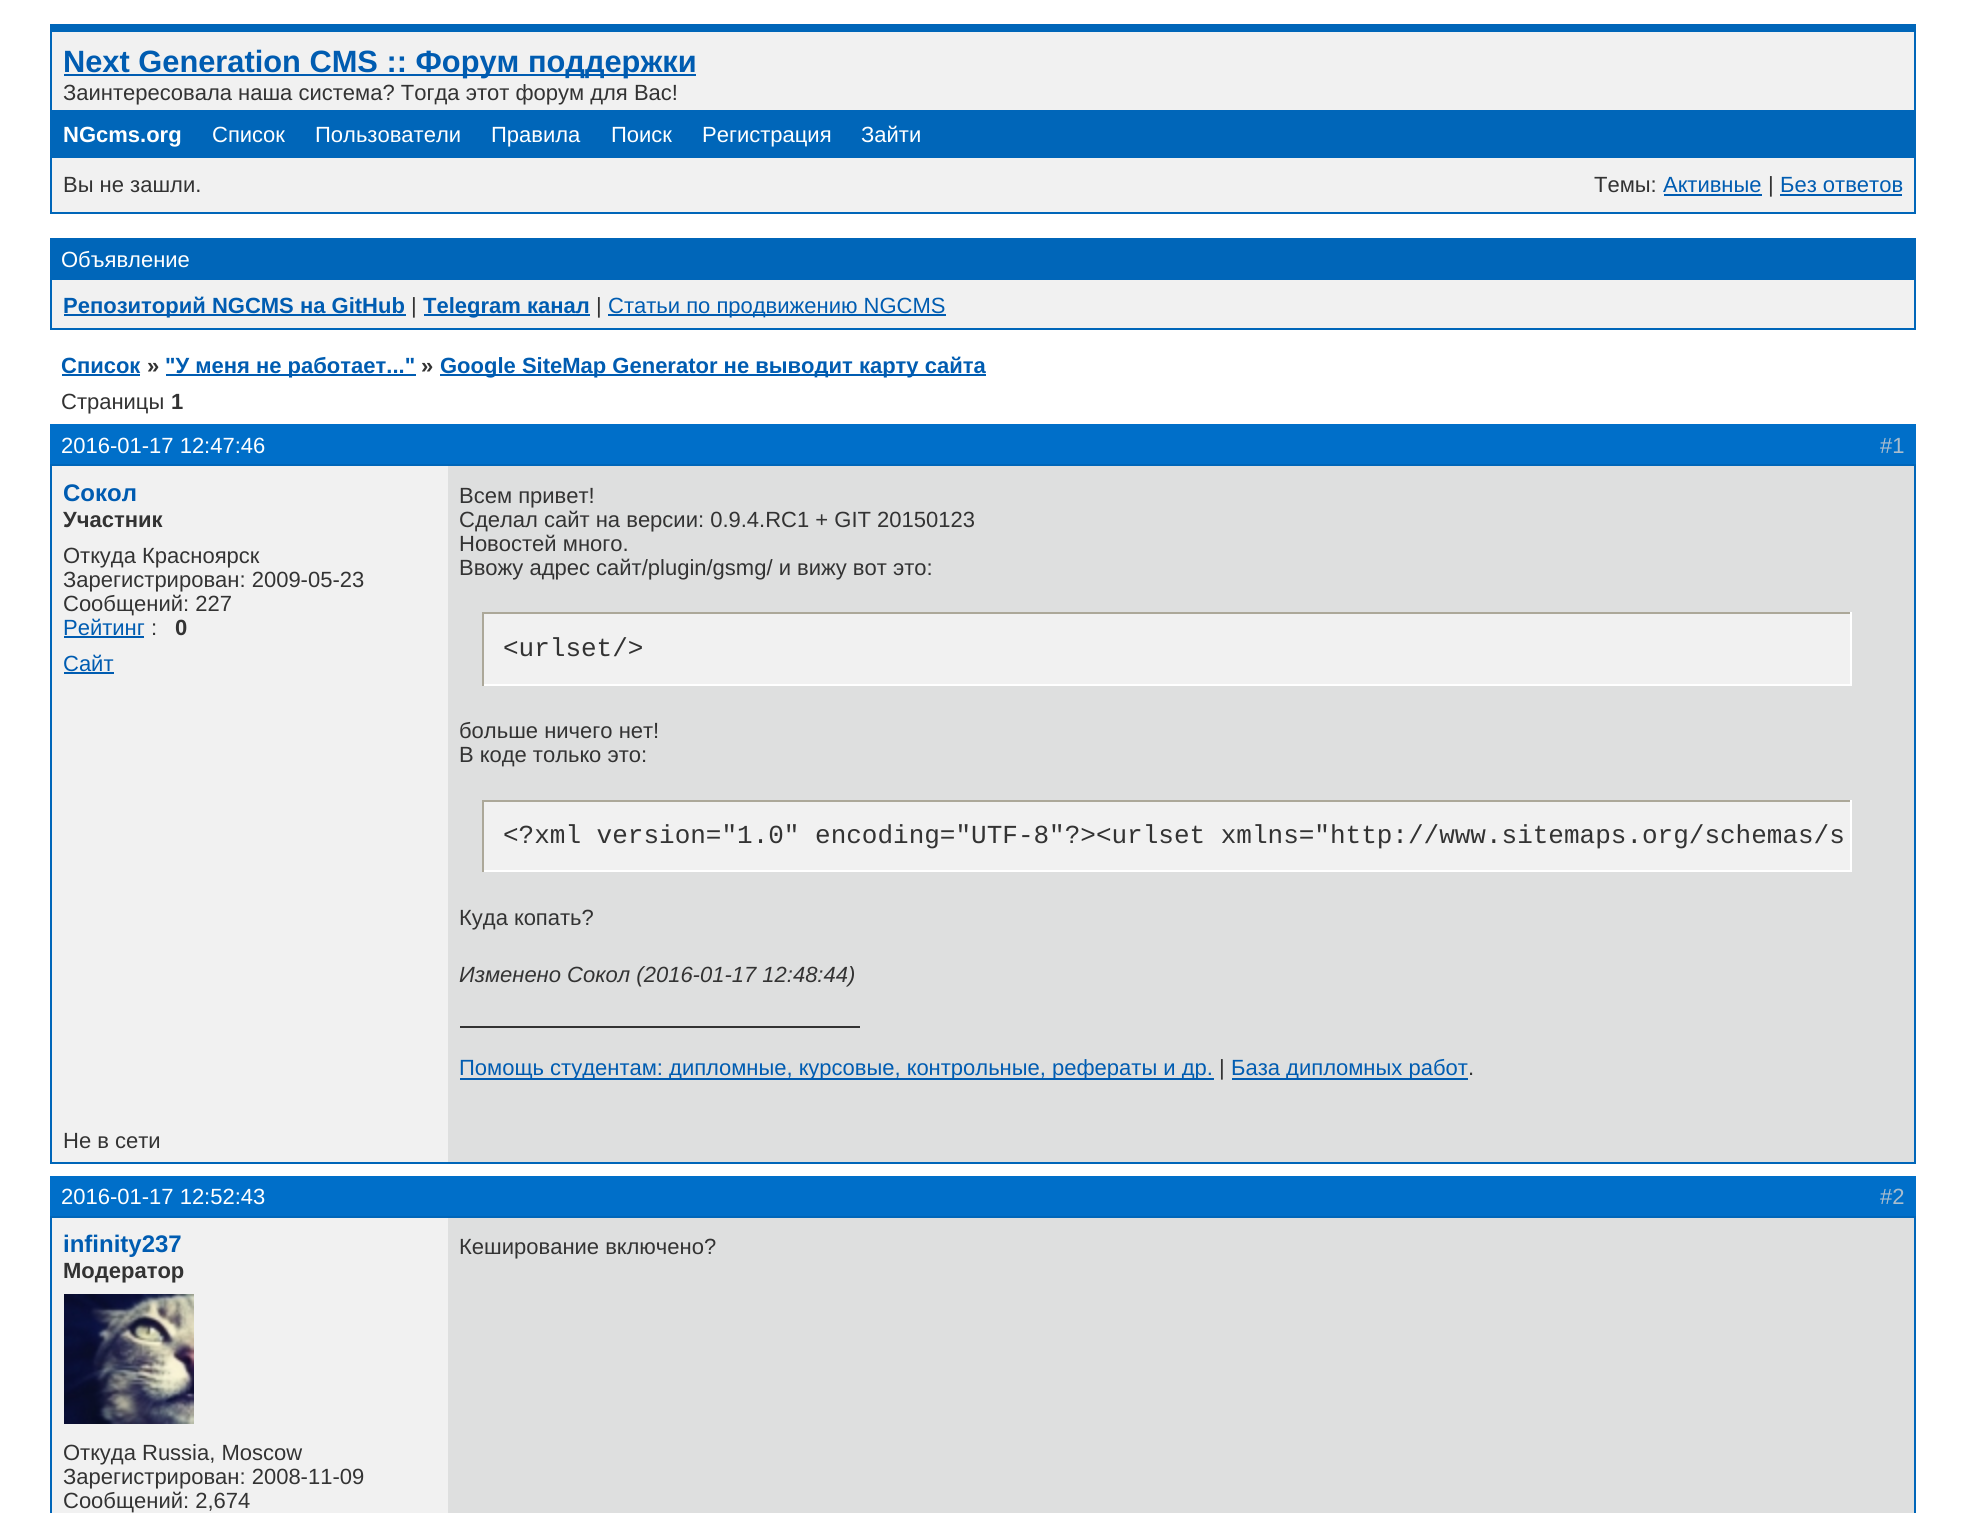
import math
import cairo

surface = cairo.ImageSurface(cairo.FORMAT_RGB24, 1965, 1513)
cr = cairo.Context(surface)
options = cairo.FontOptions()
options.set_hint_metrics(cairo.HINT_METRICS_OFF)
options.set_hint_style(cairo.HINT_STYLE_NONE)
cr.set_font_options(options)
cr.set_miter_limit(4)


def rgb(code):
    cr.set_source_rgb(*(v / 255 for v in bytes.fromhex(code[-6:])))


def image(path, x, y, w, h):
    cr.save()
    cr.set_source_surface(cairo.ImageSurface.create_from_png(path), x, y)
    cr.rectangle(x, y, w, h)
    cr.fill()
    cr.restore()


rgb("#ffffff")
cr.paint()
for x, y, w, h, color in [
    (52, 32, 1862, 180, "#f1f1f1"),
    (50, 24, 1866, 8, "#0066b9"),
    (1914, 24, 2, 190, "#0066b9"),
    (50, 212, 1866, 2, "#0066b9"),
    (50, 24, 2, 190, "#0066b9"),
    (64, 74, 632, 2, "#005cb1"),
    (52, 110, 1862, 48, "#0066b9"),
    (1664, 194, 98, 2, "#005cb1"),
    (1780, 194, 122, 2, "#005cb1"),
    (50, 238, 1866, 40, "#0066b9"),
]:
    rgb(color)
    cr.rectangle(x, y, w, h)
    cr.fill()
rgb("#f1f1f1")
cr.rectangle(51, 279, 1864, 50)
cr.fill_preserve()
rgb("#0066b9")
cr.stroke()
for x, y, w, h, color in [
    (64, 314, 342, 2, "#005cb1"),
    (424, 314, 166, 2, "#005cb1"),
    (608, 314, 338, 2, "#005cb1"),
    (62, 374, 78, 2, "#005cb1"),
    (166, 374, 250, 2, "#005cb1"),
    (440, 374, 546, 2, "#005cb1"),
    (50, 424, 1866, 40, "#006fc9"),
    (448, 466, 1466, 696, "#dedfdf"),
]:
    rgb(color)
    cr.rectangle(x, y, w, h)
    cr.fill()
cr.rectangle(51, 465, 1864, 698)
rgb("#0066b9")
cr.stroke()
for x, y, w, h, color in [
    (52, 466, 396, 696, "#f1f1f1"),
    (64, 636, 80, 2, "#005cb1"),
    (64, 672, 50, 2, "#005cb1"),
    (484, 614, 1366, 70, "#f1f1f1"),
    (482, 612, 1370, 2, "#aca899"),
    (1850, 612, 2, 74, "#ffffff"),
    (482, 684, 1370, 2, "#ffffff"),
    (482, 612, 2, 74, "#aca899"),
    (484, 802, 1366, 68, "#f1f1f1"),
    (482, 800, 1370, 2, "#aca899"),
    (1850, 800, 2, 72, "#ffffff"),
    (482, 870, 1370, 2, "#ffffff"),
    (482, 800, 2, 72, "#aca899"),
    (460, 1026, 400, 2, "#333333"),
    (460, 1078, 754, 2, "#005cb1"),
    (1232, 1078, 236, 2, "#005cb1"),
    (50, 1176, 1866, 40, "#006fc9"),
    (448, 1218, 1466, 295, "#dedfdf"),
]:
    rgb(color)
    cr.rectangle(x, y, w, h)
    cr.fill()
cr.rectangle(51, 1217, 1864, 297)
rgb("#0066b9")
cr.stroke()
rgb("#f1f1f1")
cr.rectangle(52, 1218, 396, 295)
cr.fill()
image("img/1.png", 64, 1294, 130, 130)
cr.select_font_face("Liberation Sans", cairo.FONT_SLANT_NORMAL, cairo.FONT_WEIGHT_BOLD)
cr.set_font_size(30.8)
rgb("#005cb1")
cr.move_to(63, 72)
cr.show_text("Next Generation CMS :: Форум поддержки")
cr.select_font_face("Liberation Sans")
cr.set_font_size(22)
rgb("#333333")
cr.move_to(63, 100)
cr.show_text("Заинтересовала наша система? Тогда этот форум для Вас!")
cr.select_font_face("Liberation Sans", cairo.FONT_SLANT_NORMAL, cairo.FONT_WEIGHT_BOLD)
rgb("#ffffff")
cr.move_to(63, 142)
cr.show_text("NGcms.org")
cr.select_font_face("Liberation Sans")
for x, y, s in [
    (212, 142, "Список"),
    (315, 142, "Пользователи"),
    (491, 142, "Правила"),
    (611, 142, "Поиск"),
    (702, 142, "Регистрация"),
    (861, 142, "Зайти"),
]:
    cr.move_to(x, y)
    cr.show_text(s)
rgb("#333333")
cr.move_to(63, 192)
cr.show_text("Вы не зашли.")
cr.move_to(1594, 192)
cr.show_text("Темы:")
rgb("#005cb1")
cr.move_to(1663, 192)
cr.show_text("Активные")
rgb("#333333")
cr.move_to(1768, 192)
cr.show_text("|")
rgb("#005cb1")
cr.move_to(1780, 192)
cr.show_text("Без ответов")
rgb("#ffffff")
cr.move_to(61, 267)
cr.show_text("Объявление")
cr.select_font_face("Liberation Sans", cairo.FONT_SLANT_NORMAL, cairo.FONT_WEIGHT_BOLD)
rgb("#005cb1")
cr.move_to(63, 313)
cr.show_text("Репозиторий NGCMS на GitHub")
cr.select_font_face("Liberation Sans")
rgb("#333333")
cr.move_to(411, 313)
cr.show_text("|")
cr.select_font_face("Liberation Sans", cairo.FONT_SLANT_NORMAL, cairo.FONT_WEIGHT_BOLD)
rgb("#005cb1")
cr.move_to(423, 313)
cr.show_text("Telegram канал")
cr.select_font_face("Liberation Sans")
rgb("#333333")
cr.move_to(596, 313)
cr.show_text("|")
rgb("#005cb1")
cr.move_to(608, 313)
cr.show_text("Статьи по продвижению NGCMS")
cr.select_font_face("Liberation Sans", cairo.FONT_SLANT_NORMAL, cairo.FONT_WEIGHT_BOLD)
cr.move_to(61, 373)
cr.show_text("Список")
rgb("#333333")
cr.move_to(147, 373)
cr.show_text("»")
rgb("#005cb1")
cr.move_to(165, 373)
cr.show_text("\"У меня не работает...\"")
rgb("#333333")
cr.move_to(421, 373)
cr.show_text("»")
rgb("#005cb1")
cr.move_to(440, 373)
cr.show_text("Google SiteMap Generator не выводит карту сайта")
cr.select_font_face("Liberation Sans")
rgb("#333333")
cr.move_to(61, 409)
cr.show_text("Страницы")
cr.select_font_face("Liberation Sans", cairo.FONT_SLANT_NORMAL, cairo.FONT_WEIGHT_BOLD)
cr.move_to(171, 409)
cr.show_text("1")
cr.select_font_face("Liberation Sans")
rgb("#ffffff")
cr.move_to(61, 453)
cr.show_text("2016-01-17 12:47:46")
rgb("#aabdcd")
cr.move_to(1880, 453)
cr.show_text("#1")
cr.select_font_face("Liberation Sans", cairo.FONT_SLANT_NORMAL, cairo.FONT_WEIGHT_BOLD)
cr.set_font_size(24)
rgb("#005cb1")
cr.move_to(63, 501)
cr.show_text("Сокол")
cr.set_font_size(22)
rgb("#333333")
cr.move_to(63, 527)
cr.show_text("Участник")
cr.select_font_face("Liberation Sans")
for x, y, s in [
    (63, 563, "Откуда Красноярск"),
    (63, 587, "Зарегистрирован: 2009-05-23"),
    (63, 611, "Сообщений: 227"),
]:
    cr.move_to(x, y)
    cr.show_text(s)
rgb("#005cb1")
cr.move_to(63, 635)
cr.show_text("Рейтинг")
rgb("#333333")
cr.move_to(151, 635)
cr.show_text(":")
cr.select_font_face("Liberation Sans", cairo.FONT_SLANT_NORMAL, cairo.FONT_WEIGHT_BOLD)
cr.move_to(175, 635)
cr.show_text("0")
cr.select_font_face("Liberation Sans")
rgb("#005cb1")
cr.move_to(63, 671)
cr.show_text("Сайт")
rgb("#333333")
for x, y, s in [
    (459, 503, "Всем привет!"),
    (459, 527, "Сделал сайт на версии: 0.9.4.RC1 + GIT 20150123"),
    (459, 551, "Новостей много."),
    (459, 575, "Ввожу адрес сайт/plugin/gsmg/ и вижу вот это:"),
]:
    cr.move_to(x, y)
    cr.show_text(s)
cr.select_font_face("Liberation Mono")
cr.set_font_size(26)
cr.move_to(503, 656)
cr.show_text("<urlset/>")
cr.select_font_face("Liberation Sans")
cr.set_font_size(22)
cr.move_to(459, 738)
cr.show_text("больше ничего нет!")
cr.move_to(459, 762)
cr.show_text("В коде только это:")
cr.select_font_face("Liberation Mono")
cr.set_font_size(26)
cr.move_to(503, 843)
cr.show_text("<?xml version=\"1.0\" encoding=\"UTF-8\"?><urlset xmlns=\"http://www.sitemaps.org/schemas/s")
cr.select_font_face("Liberation Sans")
cr.set_font_size(22)
cr.move_to(459, 925)
cr.show_text("Куда копать?")
cr.select_font_face("Liberation Sans", cairo.FONT_SLANT_ITALIC)
cr.move_to(459, 982)
cr.show_text("Изменено Сокол (2016-01-17 12:48:44)")
cr.select_font_face("Liberation Sans")
rgb("#005cb1")
cr.move_to(459, 1075)
cr.show_text("Помощь студентам: дипломные, курсовые, контрольные, рефераты и др.")
rgb("#333333")
cr.move_to(1219, 1075)
cr.show_text("|")
rgb("#005cb1")
cr.move_to(1231, 1075)
cr.show_text("База дипломных работ")
rgb("#333333")
cr.move_to(1468, 1075)
cr.show_text(".")
cr.move_to(63, 1148)
cr.show_text("Не в сети")
rgb("#ffffff")
cr.move_to(61, 1204)
cr.show_text("2016-01-17 12:52:43")
rgb("#aabdcd")
cr.move_to(1880, 1204)
cr.show_text("#2")
cr.select_font_face("Liberation Sans", cairo.FONT_SLANT_NORMAL, cairo.FONT_WEIGHT_BOLD)
cr.set_font_size(24)
rgb("#005cb1")
cr.move_to(63, 1252)
cr.show_text("infinity237")
cr.set_font_size(22)
rgb("#333333")
cr.move_to(63, 1278)
cr.show_text("Модератор")
cr.select_font_face("Liberation Sans")
for x, y, s in [
    (63, 1460, "Откуда Russia, Moscow"),
    (63, 1484, "Зарегистрирован: 2008-11-09"),
    (63, 1508, "Сообщений: 2,674"),
    (459, 1254, "Кеширование включено?"),
]:
    cr.move_to(x, y)
    cr.show_text(s)
surface.write_to_png("page.png")
